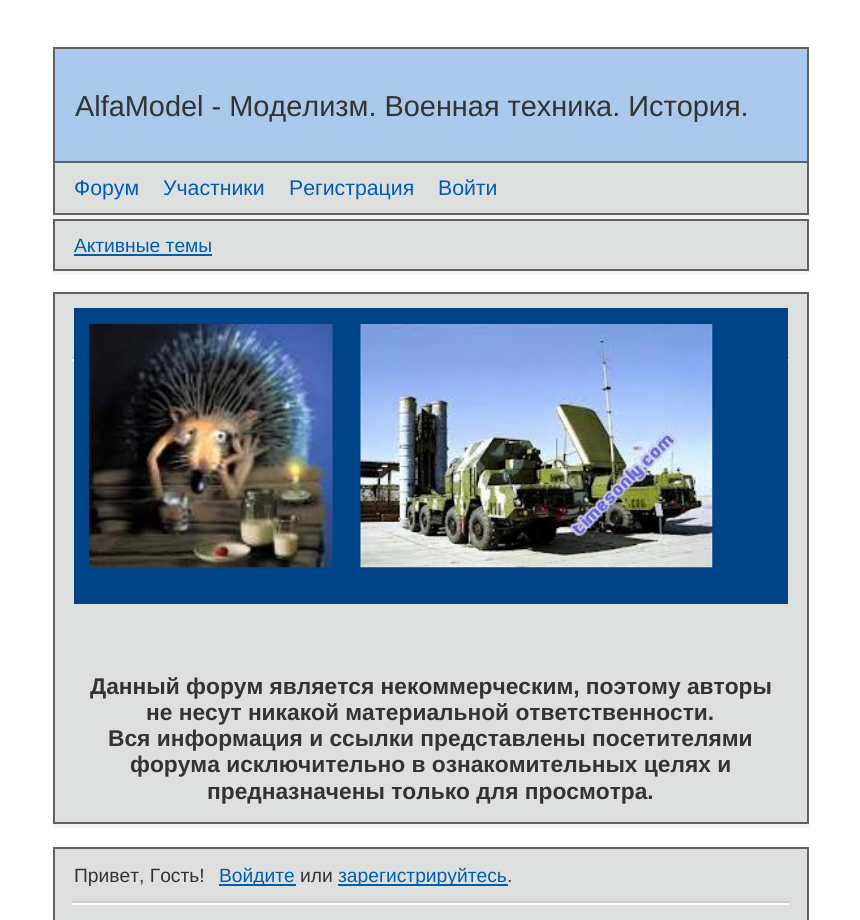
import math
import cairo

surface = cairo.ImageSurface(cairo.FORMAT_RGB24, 860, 920)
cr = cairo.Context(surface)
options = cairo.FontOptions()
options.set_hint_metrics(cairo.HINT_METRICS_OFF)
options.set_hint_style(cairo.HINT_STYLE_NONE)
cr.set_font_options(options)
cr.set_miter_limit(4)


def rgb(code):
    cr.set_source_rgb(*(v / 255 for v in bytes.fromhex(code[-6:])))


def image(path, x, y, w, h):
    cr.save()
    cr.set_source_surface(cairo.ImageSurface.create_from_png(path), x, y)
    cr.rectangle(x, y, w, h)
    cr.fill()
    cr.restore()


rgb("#ffffff")
cr.paint()
for x, y, w, h, color in [
    (55, 49, 752, 112, "#aac9eb"),
    (53, 47, 756, 2, "#606060"),
    (807, 47, 2, 114, "#606060"),
    (53, 47, 2, 114, "#606060"),
    (53, 215, 756, 4, "#f5f5f5"),
]:
    rgb(color)
    cr.rectangle(x, y, w, h)
    cr.fill()
rgb("#dedfdf")
cr.rectangle(54, 162, 754, 52)
cr.fill_preserve()
rgb("#606060")
cr.stroke()
rgb("#f5f5f5")
cr.rectangle(53, 271, 756, 4)
cr.fill()
rgb("#dedfdf")
cr.rectangle(54, 220, 754, 50)
cr.fill_preserve()
rgb("#606060")
cr.stroke()
rgb("#005eab")
cr.rectangle(74, 254, 138, 2)
cr.fill()
rgb("#f5f5f5")
cr.rectangle(53, 824, 756, 4)
cr.fill()
rgb("#dedfdf")
cr.rectangle(54, 293, 754, 530)
cr.fill_preserve()
rgb("#606060")
cr.stroke()
for x, y, w, h, color in [
    (72, 359, 717, 2, "#ffffff"),
    (72, 357, 717, 2, "#cccccc"),
    (74, 308, 714, 296, "#004488"),
]:
    rgb(color)
    cr.rectangle(x, y, w, h)
    cr.fill()
image("img/1.png", 89, 324, 244, 244)
image("img/2.png", 360, 324, 353, 244)
for x, y, w, h, color in [
    (55, 849, 752, 71, "#dedfdf"),
    (53, 847, 756, 2, "#606060"),
    (807, 847, 2, 73, "#606060"),
    (53, 847, 2, 73, "#606060"),
    (219, 884, 77, 2, "#005eab"),
    (338, 884, 170, 2, "#005eab"),
    (72, 901, 717, 2, "#cccccc"),
    (72, 903, 717, 2, "#ffffff"),
]:
    rgb(color)
    cr.rectangle(x, y, w, h)
    cr.fill()
cr.select_font_face("Liberation Sans")
cr.set_font_size(28.9)
rgb("#333333")
cr.move_to(75, 116)
cr.show_text("AlfaModel - Моделизм. Военная техника. История.")
cr.set_font_size(21.25)
rgb("#005cb1")
for x, y, s in [
    (74, 195, "Форум"),
    (163, 195, "Участники"),
    (289, 195, "Регистрация"),
    (438, 195, "Войти"),
]:
    cr.move_to(x, y)
    cr.show_text(s)
cr.set_font_size(19.25)
rgb("#005eab")
cr.move_to(74, 252)
cr.show_text("Активные темы")
cr.select_font_face("Liberation Sans", cairo.FONT_SLANT_NORMAL, cairo.FONT_WEIGHT_BOLD)
cr.set_font_size(22.75)
rgb("#333333")
for x, y, s in [
    (90, 694, "Данный форум является некоммерческим, поэтому авторы"),
    (146, 720, "не несут никакой материальной ответственности."),
    (108, 746, "Вся информация и ссылки представлены посетителями"),
    (130, 772, "форума исключительно в ознакомительных целях и"),
    (207, 799, "предназначены только для просмотра."),
]:
    cr.move_to(x, y)
    cr.show_text(s)
cr.select_font_face("Liberation Sans")
cr.set_font_size(19.25)
cr.move_to(74, 882)
cr.show_text("Привет, Гость!")
rgb("#005eab")
cr.move_to(219, 882)
cr.show_text("Войдите")
rgb("#333333")
cr.move_to(300, 882)
cr.show_text("или")
rgb("#005eab")
cr.move_to(338, 882)
cr.show_text("зарегистрируйтесь")
rgb("#333333")
cr.move_to(507, 882)
cr.show_text(".")
surface.write_to_png("page.png")
